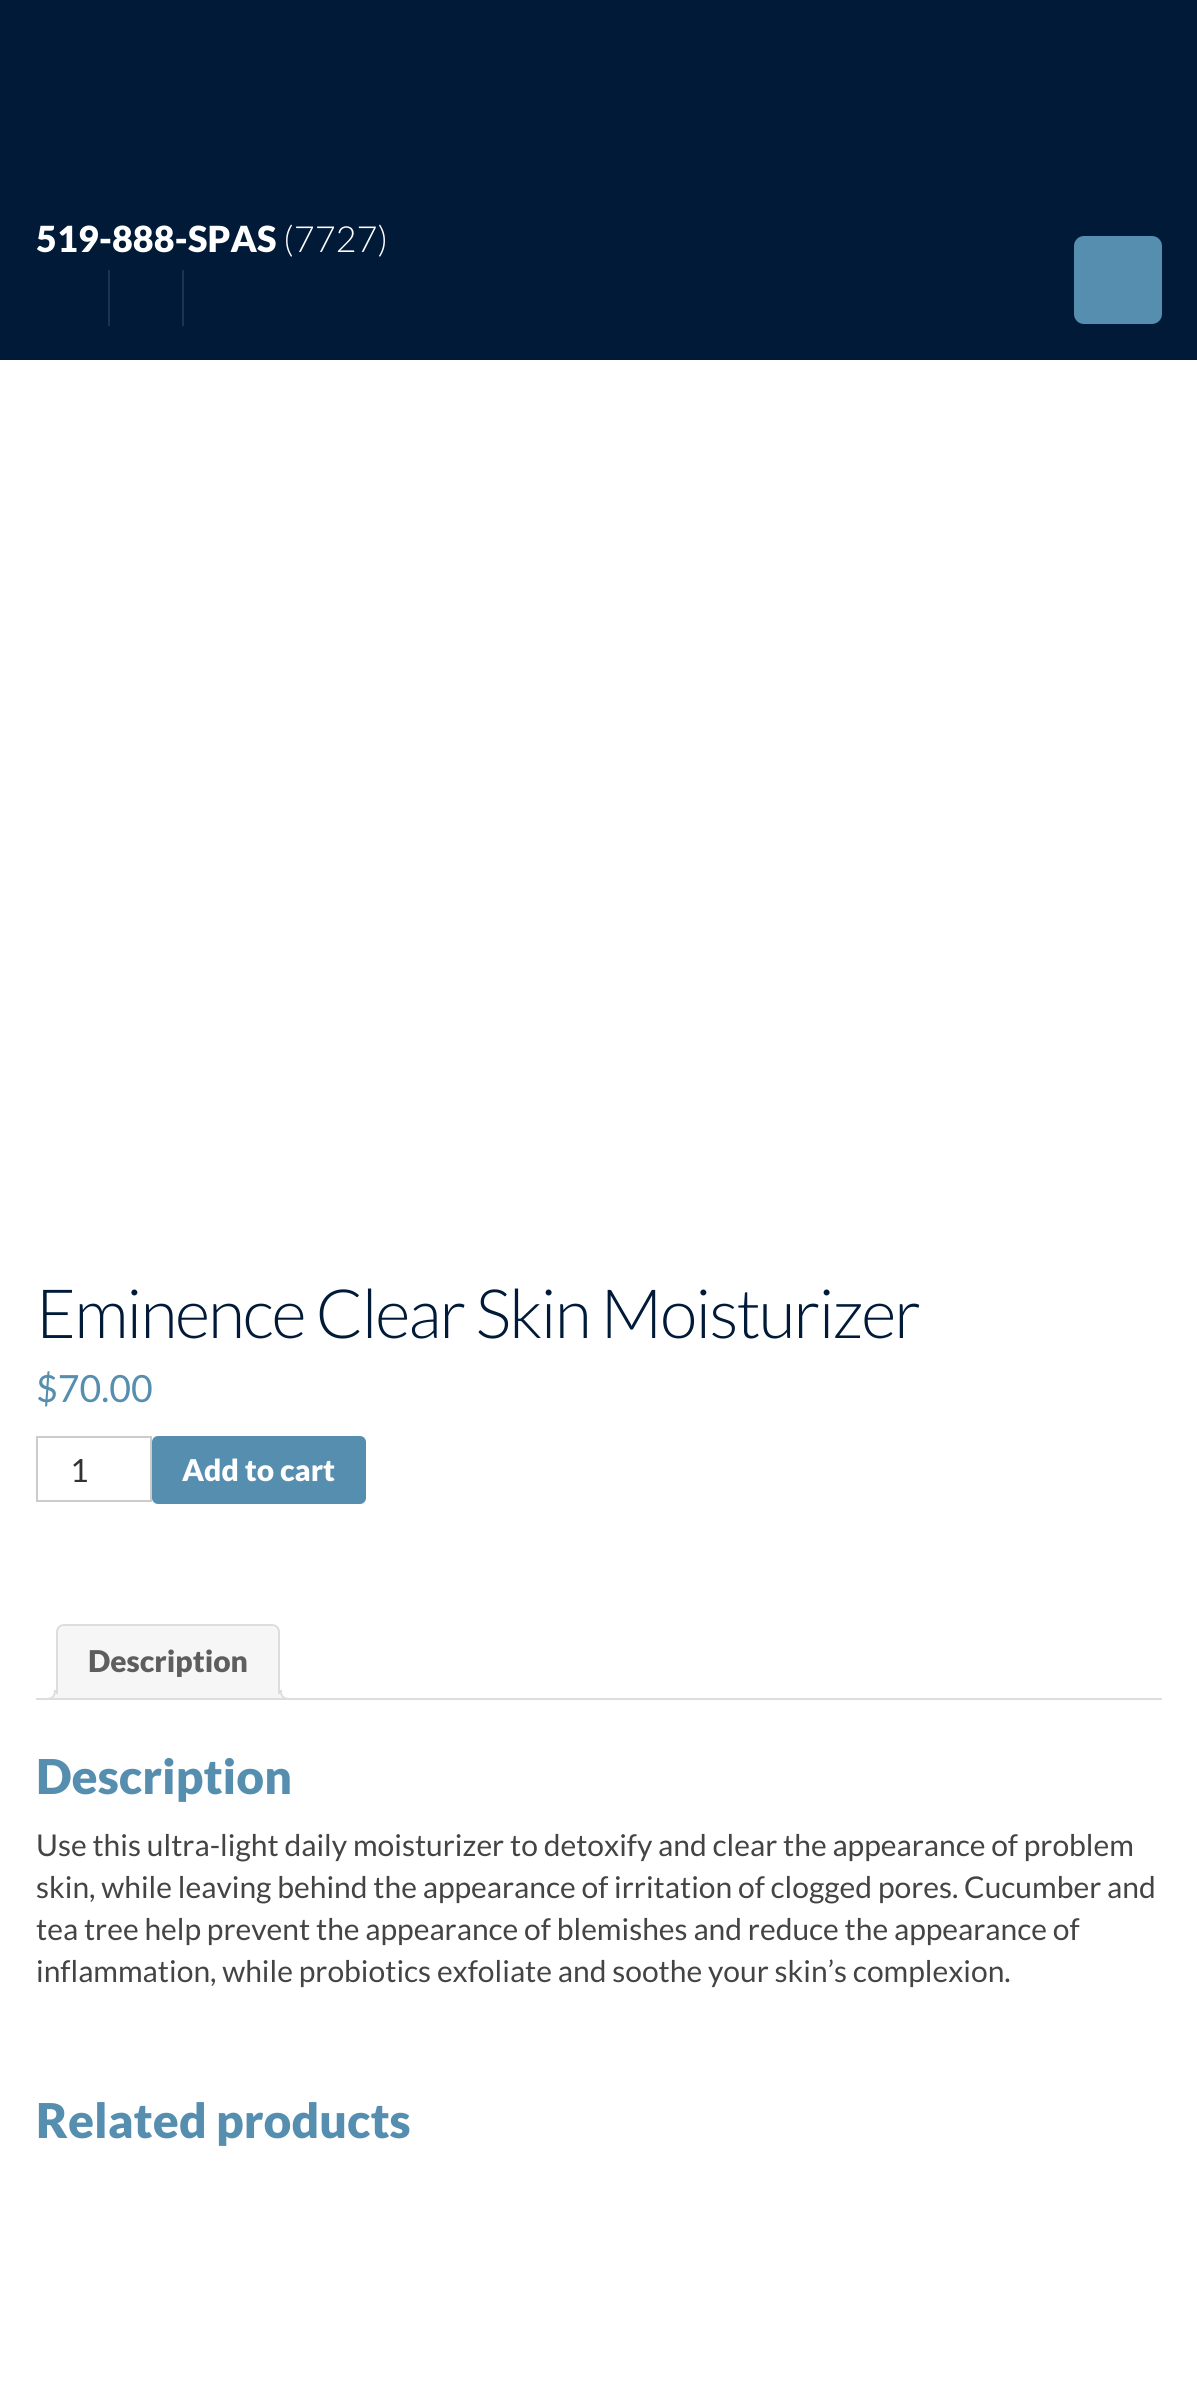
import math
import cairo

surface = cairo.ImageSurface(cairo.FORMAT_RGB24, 1197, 2395)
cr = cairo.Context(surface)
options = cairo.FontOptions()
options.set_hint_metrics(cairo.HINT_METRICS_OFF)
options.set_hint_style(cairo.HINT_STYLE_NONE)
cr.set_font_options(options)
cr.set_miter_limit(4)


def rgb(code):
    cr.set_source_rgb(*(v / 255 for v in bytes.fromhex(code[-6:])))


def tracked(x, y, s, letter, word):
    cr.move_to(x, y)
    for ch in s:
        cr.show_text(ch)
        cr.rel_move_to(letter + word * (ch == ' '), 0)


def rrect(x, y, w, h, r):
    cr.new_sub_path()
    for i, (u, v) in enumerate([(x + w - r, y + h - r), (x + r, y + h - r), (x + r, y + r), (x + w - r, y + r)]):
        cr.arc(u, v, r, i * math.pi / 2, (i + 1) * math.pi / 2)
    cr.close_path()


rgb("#ffffff")
cr.paint()
rgb("#001a37")
cr.rectangle(0, 0, 1197, 360)
cr.fill()
rgb("#568eb0")
rrect(1074, 236, 88, 88, 10)
cr.fill()
rgb("#1e3350")
cr.rectangle(108, 270, 2, 56)
cr.fill()
cr.rectangle(182, 270, 2, 56)
cr.fill()
cr.rectangle(37, 1437, 114, 64)
rgb("#cccccc")
cr.stroke()
rgb("#568eb0")
rrect(152, 1436, 214, 68, 6)
cr.fill()
rgb("#f7f6f7")
cr.new_path()
cr.move_to(64, 1625)
cr.line_to(272, 1625)
cr.curve_to(276, 1625, 279, 1628, 279, 1632)
cr.line_to(279, 1699)
cr.line_to(57, 1699)
cr.line_to(57, 1632)
cr.curve_to(57, 1628, 60, 1625, 64, 1625)
cr.close_path()
cr.fill_preserve()
rgb("#dfdbdf")
cr.stroke()
cr.save()
cr.rectangle(36, 1624, 1126, 76)
cr.clip()
rgb("#f7f6f7")
cr.new_path()
cr.move_to(50, 1699.5)
cr.line_to(50, 1704)
cr.curve_to(57, 1704, 60, 1701, 60, 1694)
cr.line_to(55.5, 1694)
cr.curve_to(55, 1697, 53, 1699, 50, 1699.5)
cr.close_path()
cr.fill()
cr.restore()
cr.set_fill_rule(cairo.FILL_RULE_EVEN_ODD)
cr.new_path()
cr.move_to(46, 1690)
cr.line_to(56, 1690)
cr.curve_to(56, 1697, 53, 1700, 46, 1700)
cr.close_path()
cr.move_to(46, 1690)
cr.line_to(54, 1690)
cr.curve_to(54, 1696, 52, 1698, 46, 1698)
cr.close_path()
cr.fill()
cr.save()
cr.set_fill_rule(cairo.FILL_RULE_WINDING)
cr.rectangle(36, 1624, 1126, 76)
cr.clip()
rgb("#f7f6f7")
cr.new_path()
cr.move_to(276, 1694)
cr.curve_to(276, 1701, 279, 1704, 286, 1704)
cr.line_to(286, 1699.5)
cr.curve_to(283, 1699, 281, 1697, 280.5, 1694)
cr.close_path()
cr.fill()
cr.restore()
cr.new_path()
cr.move_to(280, 1690)
cr.line_to(290, 1690)
cr.line_to(290, 1700)
cr.curve_to(285, 1700, 280, 1698, 280, 1692)
cr.close_path()
cr.move_to(282, 1690)
cr.line_to(290, 1690)
cr.line_to(290, 1698)
cr.curve_to(286, 1698, 282, 1697, 282, 1692)
cr.close_path()
cr.fill()
cr.rectangle(36, 1698, 1126, 2)
cr.fill()
cr.select_font_face("Lato Black")
cr.set_font_size(36)
rgb("#ffffff")
cr.move_to(36, 252)
cr.show_text("519-888-SPAS")
cr.select_font_face("Lato Light")
cr.move_to(283, 252)
cr.show_text("(7727)")
cr.set_font_size(68)
rgb("#001a37")
tracked(36, 1338, "Eminence Clear Skin Moisturizer", -2, 0)
cr.select_font_face("Lato")
cr.set_font_size(37.5)
rgb("#568eb0")
cr.move_to(36, 1402)
cr.show_text("$70.00")
cr.set_font_size(32)
rgb("#333333")
cr.move_to(70, 1482)
cr.show_text("1")
cr.select_font_face("Lato Black")
cr.set_font_size(30)
rgb("#ffffff")
cr.move_to(182, 1481)
cr.show_text("Add to cart")
rgb("#5e5e5e")
cr.move_to(88, 1672)
cr.show_text("Description")
cr.set_font_size(48)
rgb("#568eb0")
cr.move_to(36, 1794)
cr.show_text("Description")
cr.select_font_face("Lato")
cr.set_font_size(30)
rgb("#444444")
for x, y, s in [
    (36, 1856, "Use this ultra-light daily moisturizer to detoxify and clear the appearance of problem"),
    (36, 1898, "skin, while leaving behind the appearance of irritation of clogged pores. Cucumber and"),
    (36, 1940, "tea tree help prevent the appearance of blemishes and reduce the appearance of"),
    (36, 1982, "inflammation, while probiotics exfoliate and soothe your skin’s complexion."),
]:
    cr.move_to(x, y)
    cr.show_text(s)
cr.select_font_face("Lato Black")
cr.set_font_size(48)
rgb("#568eb0")
cr.move_to(36, 2138)
cr.show_text("Related products")
surface.write_to_png("page.png")
